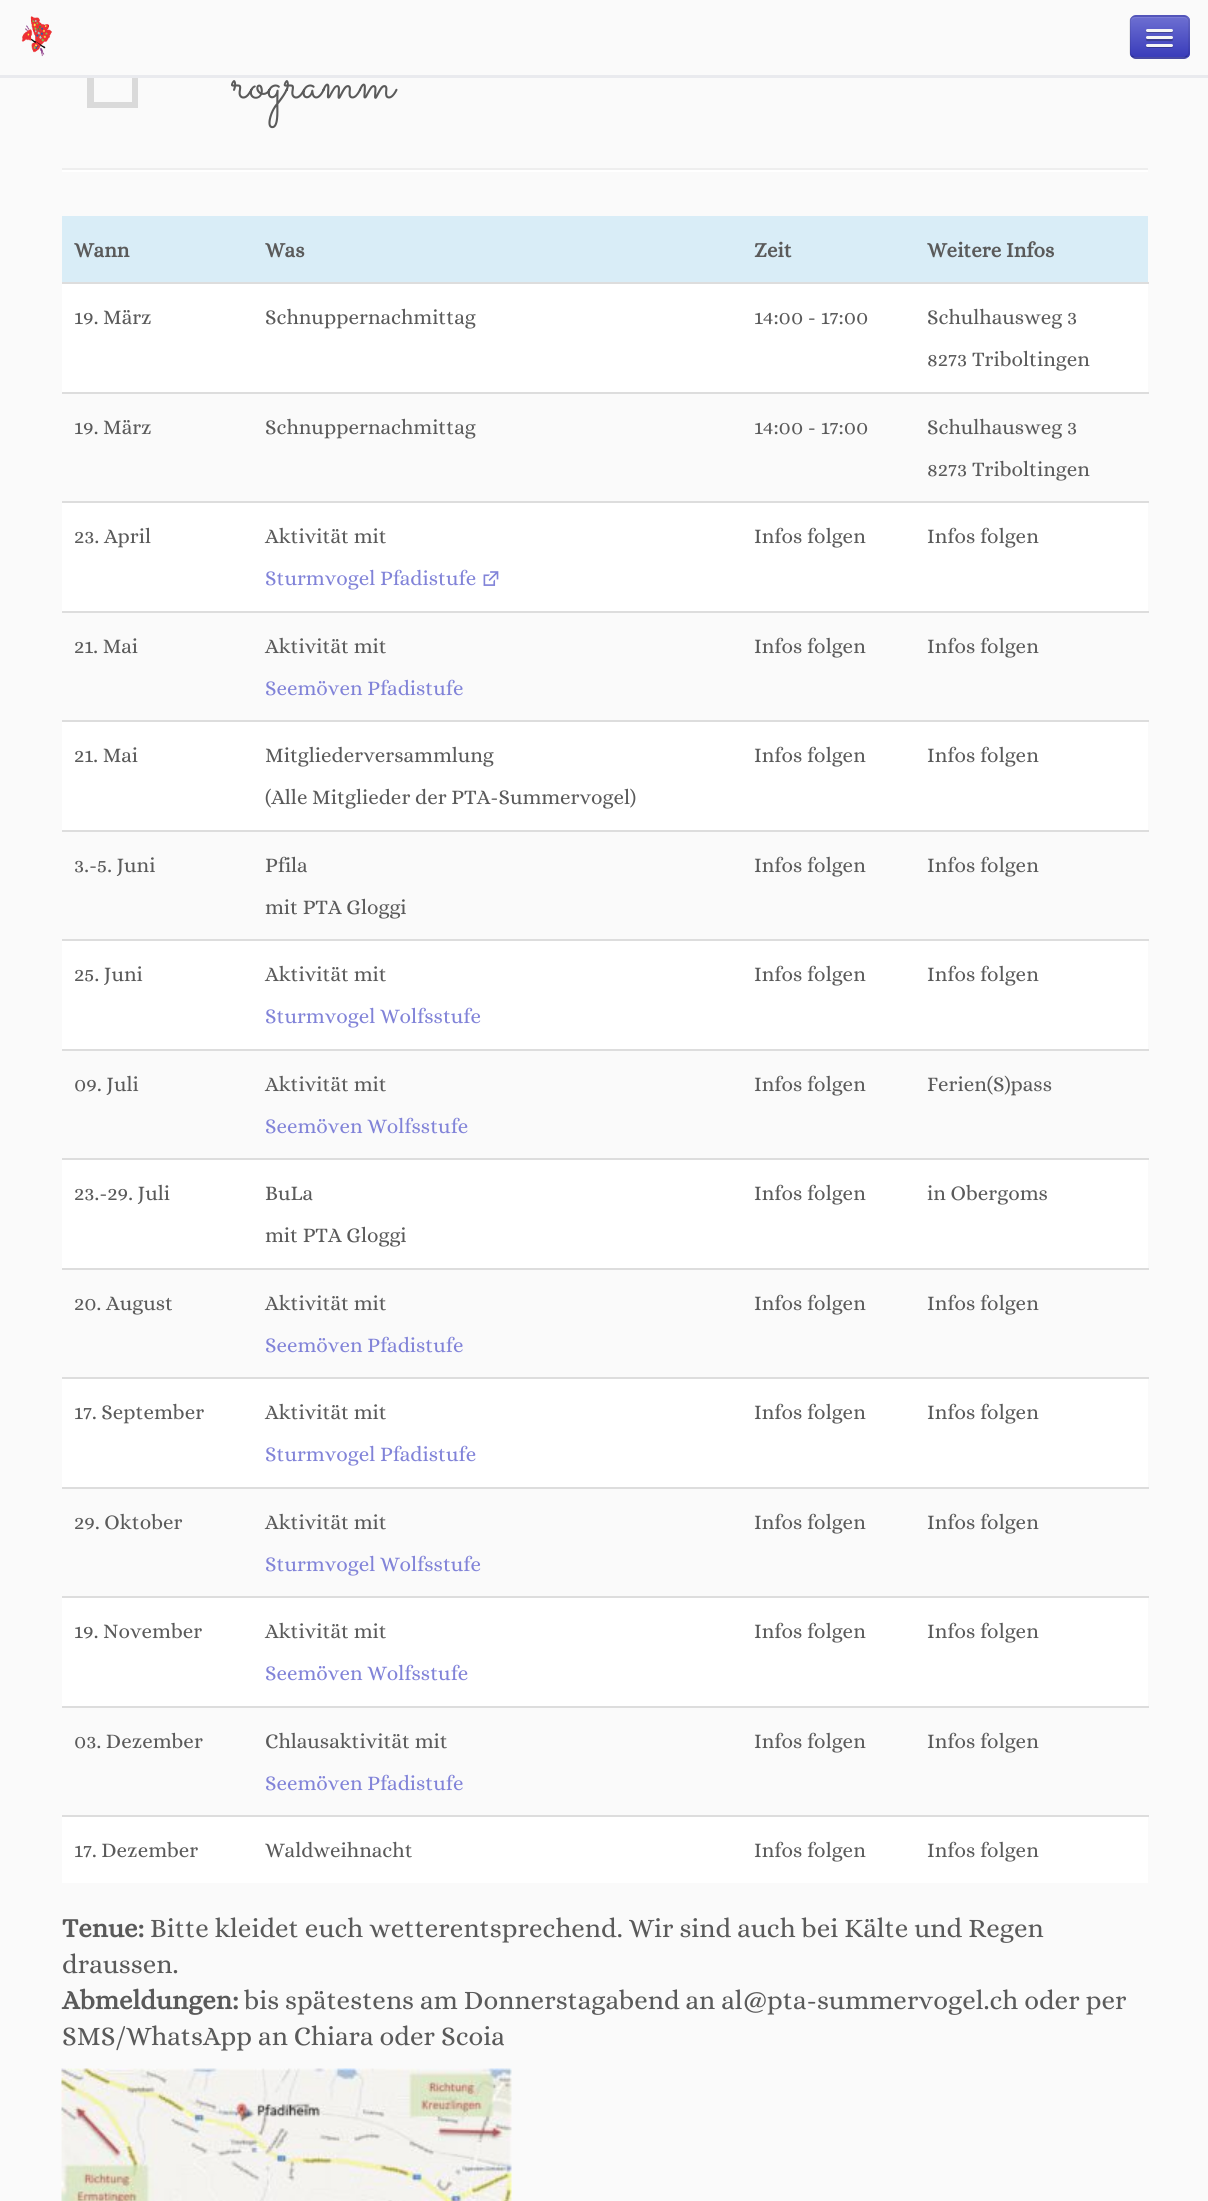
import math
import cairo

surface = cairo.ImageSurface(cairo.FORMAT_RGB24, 1208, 2201)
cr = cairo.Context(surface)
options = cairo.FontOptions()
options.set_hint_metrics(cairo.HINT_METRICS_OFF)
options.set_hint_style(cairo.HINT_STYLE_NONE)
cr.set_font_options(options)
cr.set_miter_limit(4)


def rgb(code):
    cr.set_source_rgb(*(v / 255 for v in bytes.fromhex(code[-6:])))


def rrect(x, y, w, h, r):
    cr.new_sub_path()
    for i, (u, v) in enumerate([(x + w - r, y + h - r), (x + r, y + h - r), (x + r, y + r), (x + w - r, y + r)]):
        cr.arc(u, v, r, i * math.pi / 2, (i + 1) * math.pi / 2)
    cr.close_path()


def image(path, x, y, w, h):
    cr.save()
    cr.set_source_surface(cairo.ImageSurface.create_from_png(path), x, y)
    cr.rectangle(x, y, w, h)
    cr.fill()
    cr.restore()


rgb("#fafafa")
cr.paint()
rgb("#dadada")
cr.new_path()
cr.move_to(119, 44)
cr.line_to(138, 63)
cr.line_to(138, 108)
cr.line_to(87, 108)
cr.line_to(87, 44)
cr.close_path()
cr.move_to(132, 102)
cr.line_to(132, 70)
cr.line_to(113, 70)
cr.line_to(113, 51)
cr.line_to(94, 51)
cr.line_to(94, 102)
cr.close_path()
cr.fill()
rgb("#fafafa")
cr.rectangle(87, 44, 51, 31)
cr.fill()
rgb("#e9eaee")
cr.rectangle(0, 75, 1208, 3)
cr.fill()
image("img/1.png", 21, 16, 31, 41)
rgb("#595bc8")
rrect(1130, 15, 60, 44, 6)
cr.fill()
cr.save()
rrect(1130, 15, 60, 44, 6)
cr.clip()
gradient = cairo.LinearGradient(1160, 16, 1160, 57)
gradient.add_color_stop_rgba(0, 0.431, 0.439, 0.824, 1)
gradient.add_color_stop_rgba(1, 0.224, 0.235, 0.729, 1)
cr.set_source(gradient)
cr.rectangle(1130, 17, 60, 40)
cr.fill()
cr.restore()
rgb("#7b7cd6")
cr.new_path()
cr.move_to(1136, 18)
cr.line_to(1184, 18)
cr.curve_to(1186, 18, 1188, 20, 1188, 22)
cr.curve_to(1188, 19, 1186, 17, 1183, 17)
cr.line_to(1136, 17)
cr.curve_to(1133, 17, 1131, 19, 1131, 22)
cr.curve_to(1131, 20, 1133, 18, 1136, 18)
cr.close_path()
cr.fill()
cr.new_path()
cr.move_to(1187, 56)
cr.curve_to(1186, 57, 1185, 58, 1183.5, 58)
cr.line_to(1135.5, 58)
cr.curve_to(1134, 58, 1133, 57, 1132, 56)
cr.set_source_rgba(0, 0, 0, 0.25)
cr.set_line_width(1.5)
cr.stroke()
cr.new_path()
cr.move_to(1132, 56)
cr.curve_to(1131, 55, 1130, 54, 1130, 52.5)
cr.line_to(1130, 21)
cr.curve_to(1130, 19.5, 1131, 18.5, 1132, 17.5)
cr.curve_to(1133, 16.5, 1134, 16, 1135.5, 16)
cr.line_to(1183.5, 16)
cr.curve_to(1185, 16, 1186, 16.5, 1187, 17.5)
cr.curve_to(1188, 18.5, 1189, 19.5, 1189, 21)
cr.line_to(1189, 52.5)
cr.curve_to(1189, 54, 1188, 55, 1187, 56)
cr.set_source_rgba(0, 0, 0, 0.1)
cr.stroke()
rgb("#434496")
cr.new_path()
cr.move_to(1146, 30.5)
cr.curve_to(1144.5, 34, 1151.5, 33, 1151.5, 33)
cr.line_to(1167.5, 33)
cr.curve_to(1167.5, 33, 1174.5, 34, 1173, 30.5)
cr.curve_to(1172.5, 31, 1172, 31.5, 1171.5, 31.5)
cr.line_to(1147.5, 31.5)
cr.curve_to(1147, 31.5, 1146.5, 31, 1146, 30.5)
cr.close_path()
cr.fill()
rgb("#f5f5f5")
rrect(1146, 29, 27, 3, 1.5)
cr.fill()
rgb("#3b3d93")
cr.new_path()
cr.move_to(1146.5, 38.5)
cr.line_to(1146, 40)
cr.curve_to(1146.5, 42, 1151, 41, 1151.5, 41)
cr.line_to(1167.5, 41)
cr.curve_to(1168, 41, 1172.5, 42, 1173, 40)
cr.line_to(1172.5, 38.5)
cr.line_to(1171.5, 39)
cr.line_to(1147.5, 39)
cr.close_path()
cr.fill()
rgb("#f5f5f5")
rrect(1146, 36, 27, 3, 1.5)
cr.fill()
rgb("#343690")
cr.new_path()
cr.move_to(1146, 45.5)
cr.curve_to(1144.5, 49, 1151.5, 48, 1151.5, 48)
cr.line_to(1167.5, 48)
cr.curve_to(1167.5, 48, 1174.5, 49, 1173, 45.5)
cr.curve_to(1172.5, 46, 1172, 46.5, 1171.5, 46.5)
cr.line_to(1147.5, 46.5)
cr.curve_to(1147, 46.5, 1146.5, 46, 1146, 45.5)
cr.close_path()
cr.fill()
rgb("#f5f5f5")
rrect(1146, 44, 27, 3, 1.5)
cr.fill()
for x, y, w, h, color in [
    (62, 168, 1086, 2, "#eeeeee"),
    (62, 170, 1086, 2, "#ffffff"),
    (62, 216, 1086, 66, "#d9edf7"),
    (62, 282, 1087, 2, "#dddddd"),
    (62, 284, 1086, 108, "#ffffff"),
    (62, 392, 1087, 2, "#dddddd"),
    (62, 503, 1086, 108, "#ffffff"),
]:
    rgb(color)
    cr.rectangle(x, y, w, h)
    cr.fill()
image("img/2.png", 483, 571, 16, 15)
for x, y, w, h, color in [
    (62, 501, 1087, 2, "#dddddd"),
    (62, 611, 1087, 2, "#dddddd"),
    (62, 722, 1086, 108, "#ffffff"),
    (62, 720, 1087, 2, "#dddddd"),
    (62, 830, 1087, 2, "#dddddd"),
    (62, 941, 1086, 108, "#ffffff"),
    (62, 939, 1087, 2, "#dddddd"),
    (62, 1049, 1087, 2, "#dddddd"),
    (62, 1160, 1086, 108, "#ffffff"),
    (62, 1158, 1087, 2, "#dddddd"),
    (62, 1268, 1087, 2, "#dddddd"),
    (62, 1379, 1086, 108, "#ffffff"),
    (62, 1377, 1087, 2, "#dddddd"),
    (62, 1487, 1087, 2, "#dddddd"),
    (62, 1598, 1086, 108, "#ffffff"),
    (62, 1596, 1087, 2, "#dddddd"),
    (62, 1706, 1087, 2, "#dddddd"),
    (62, 1817, 1086, 66, "#ffffff"),
    (62, 1815, 1087, 2, "#dddddd"),
]:
    rgb(color)
    cr.rectangle(x, y, w, h)
    cr.fill()
image("img/3.png", 61, 2068, 451, 133)
cr.select_font_face("Sacramento")
cr.set_font_size(57)
rgb("#5a5a5a")
cr.move_to(232, 98)
cr.show_text("rogramm")
cr.select_font_face("Alice", cairo.FONT_SLANT_NORMAL, cairo.FONT_WEIGHT_BOLD)
cr.set_font_size(21)
for x, y, s in [
    (74, 257, "Wann"),
    (265, 257, "Was"),
    (754, 257, "Zeit"),
    (927, 257, "Weitere Infos"),
]:
    cr.move_to(x, y)
    cr.show_text(s)
cr.select_font_face("Alice")
for x, y, s in [
    (74, 324, "19. März"),
    (265, 324, "Schnuppernachmittag"),
    (754, 324, "14:00 - 17:00"),
    (927, 324, "Schulhausweg 3"),
    (927, 366, "8273 Triboltingen"),
    (74, 434, "19. März"),
    (265, 434, "Schnuppernachmittag"),
    (754, 434, "14:00 - 17:00"),
    (927, 434, "Schulhausweg 3"),
    (927, 476, "8273 Triboltingen"),
    (74, 543, "23. April"),
    (265, 543, "Aktivität mit"),
]:
    cr.move_to(x, y)
    cr.show_text(s)
rgb("#8183d8")
cr.move_to(265, 585)
cr.show_text("Sturmvogel Pfadistufe")
rgb("#5a5a5a")
for x, y, s in [
    (754, 543, "Infos folgen"),
    (927, 543, "Infos folgen"),
    (74, 653, "21. Mai"),
    (265, 653, "Aktivität mit"),
]:
    cr.move_to(x, y)
    cr.show_text(s)
rgb("#8183d8")
cr.move_to(265, 695)
cr.show_text("Seemöven Pfadistufe")
rgb("#5a5a5a")
for x, y, s in [
    (754, 653, "Infos folgen"),
    (927, 653, "Infos folgen"),
    (74, 762, "21. Mai"),
    (265, 762, "Mitgliederversammlung"),
    (265, 804, "(Alle Mitglieder der PTA-Summervogel)"),
    (754, 762, "Infos folgen"),
    (927, 762, "Infos folgen"),
    (74, 872, "3.-5. Juni"),
    (265, 872, "Pfila"),
    (265, 914, "mit PTA Gloggi"),
    (754, 872, "Infos folgen"),
    (927, 872, "Infos folgen"),
    (74, 981, "25. Juni"),
    (265, 981, "Aktivität mit"),
]:
    cr.move_to(x, y)
    cr.show_text(s)
rgb("#8183d8")
cr.move_to(265, 1023)
cr.show_text("Sturmvogel Wolfsstufe")
rgb("#5a5a5a")
for x, y, s in [
    (754, 981, "Infos folgen"),
    (927, 981, "Infos folgen"),
    (74, 1091, "09. Juli"),
    (265, 1091, "Aktivität mit"),
]:
    cr.move_to(x, y)
    cr.show_text(s)
rgb("#8183d8")
cr.move_to(265, 1133)
cr.show_text("Seemöven Wolfsstufe")
rgb("#5a5a5a")
for x, y, s in [
    (754, 1091, "Infos folgen"),
    (927, 1091, "Ferien(S)pass"),
    (74, 1200, "23.-29. Juli"),
    (265, 1200, "BuLa"),
    (265, 1242, "mit PTA Gloggi"),
    (754, 1200, "Infos folgen"),
    (927, 1200, "in Obergoms"),
    (74, 1310, "20. August"),
    (265, 1310, "Aktivität mit"),
]:
    cr.move_to(x, y)
    cr.show_text(s)
rgb("#8183d8")
cr.move_to(265, 1352)
cr.show_text("Seemöven Pfadistufe")
rgb("#5a5a5a")
for x, y, s in [
    (754, 1310, "Infos folgen"),
    (927, 1310, "Infos folgen"),
    (74, 1419, "17. September"),
    (265, 1419, "Aktivität mit"),
]:
    cr.move_to(x, y)
    cr.show_text(s)
rgb("#8183d8")
cr.move_to(265, 1461)
cr.show_text("Sturmvogel Pfadistufe")
rgb("#5a5a5a")
for x, y, s in [
    (754, 1419, "Infos folgen"),
    (927, 1419, "Infos folgen"),
    (74, 1529, "29. Oktober"),
    (265, 1529, "Aktivität mit"),
]:
    cr.move_to(x, y)
    cr.show_text(s)
rgb("#8183d8")
cr.move_to(265, 1571)
cr.show_text("Sturmvogel Wolfsstufe")
rgb("#5a5a5a")
for x, y, s in [
    (754, 1529, "Infos folgen"),
    (927, 1529, "Infos folgen"),
    (74, 1638, "19. November"),
    (265, 1638, "Aktivität mit"),
]:
    cr.move_to(x, y)
    cr.show_text(s)
rgb("#8183d8")
cr.move_to(265, 1680)
cr.show_text("Seemöven Wolfsstufe")
rgb("#5a5a5a")
for x, y, s in [
    (754, 1638, "Infos folgen"),
    (927, 1638, "Infos folgen"),
    (74, 1748, "03. Dezember"),
    (265, 1748, "Chlausaktivität mit"),
]:
    cr.move_to(x, y)
    cr.show_text(s)
rgb("#8183d8")
cr.move_to(265, 1790)
cr.show_text("Seemöven Pfadistufe")
rgb("#5a5a5a")
for x, y, s in [
    (754, 1748, "Infos folgen"),
    (927, 1748, "Infos folgen"),
    (74, 1857, "17. Dezember"),
    (265, 1857, "Waldweihnacht"),
    (754, 1857, "Infos folgen"),
    (927, 1857, "Infos folgen"),
]:
    cr.move_to(x, y)
    cr.show_text(s)
cr.select_font_face("Alice", cairo.FONT_SLANT_NORMAL, cairo.FONT_WEIGHT_BOLD)
cr.set_font_size(27)
cr.move_to(62, 1937)
cr.show_text("Tenue:")
cr.select_font_face("Alice")
cr.move_to(150, 1937)
cr.show_text("Bitte kleidet euch wetterentsprechend. Wir sind auch bei Kälte und Regen")
cr.move_to(62, 1973)
cr.show_text("draussen.")
cr.select_font_face("Alice", cairo.FONT_SLANT_NORMAL, cairo.FONT_WEIGHT_BOLD)
cr.move_to(62, 2009)
cr.show_text("Abmeldungen:")
cr.select_font_face("Alice")
cr.move_to(244, 2009)
cr.show_text("bis spätestens am Donnerstagabend an al@pta-summervogel.ch oder per")
cr.move_to(62, 2045)
cr.show_text("SMS/WhatsApp an Chiara oder Scoia")
surface.write_to_png("page.png")
